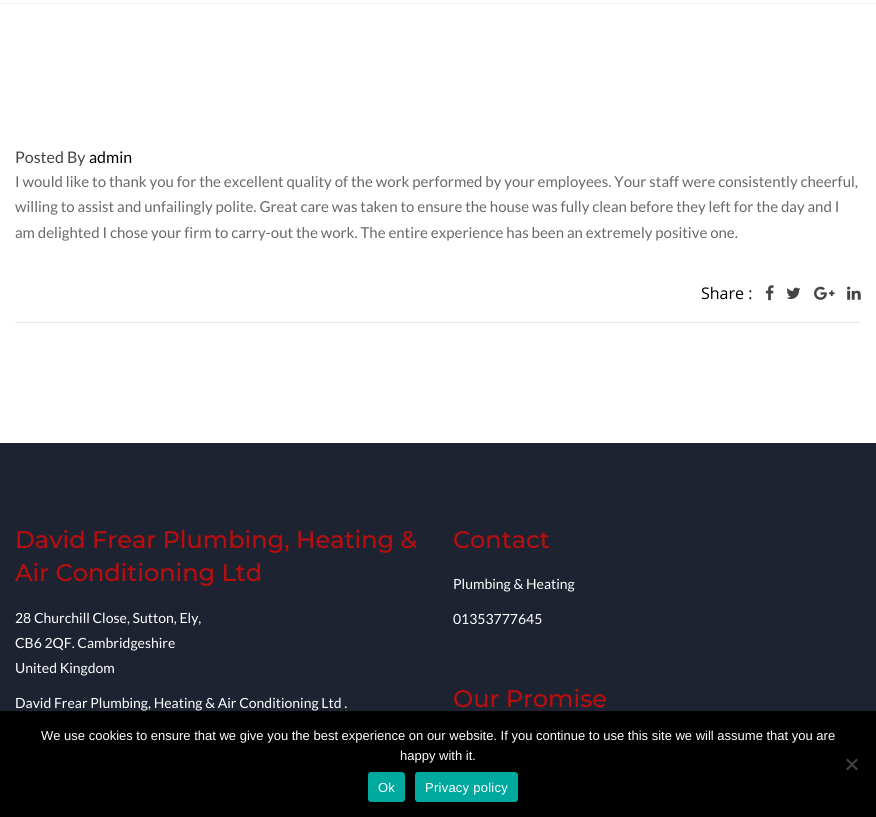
import math
import cairo

surface = cairo.ImageSurface(cairo.FORMAT_RGB24, 876, 817)
cr = cairo.Context(surface)
options = cairo.FontOptions()
options.set_hint_metrics(cairo.HINT_METRICS_OFF)
options.set_hint_style(cairo.HINT_STYLE_NONE)
cr.set_font_options(options)
cr.set_miter_limit(4)


def rgb(code):
    cr.set_source_rgb(*(v / 255 for v in bytes.fromhex(code[-6:])))


def tracked(x, y, s, letter, word):
    cr.move_to(x, y)
    for ch in s:
        cr.show_text(ch)
        cr.rel_move_to(letter + word * (ch == ' '), 0)


def rrect(x, y, w, h, r):
    cr.new_sub_path()
    for i, (u, v) in enumerate([(x + w - r, y + h - r), (x + r, y + h - r), (x + r, y + r), (x + w - r, y + r)]):
        cr.arc(u, v, r, i * math.pi / 2, (i + 1) * math.pi / 2)
    cr.close_path()


def image(path, x, y, w, h):
    cr.save()
    cr.set_source_surface(cairo.ImageSurface.create_from_png(path), x, y)
    cr.rectangle(x, y, w, h)
    cr.fill()
    cr.restore()


rgb("#ffffff")
cr.paint()
rgb("#f2f2f2")
cr.rectangle(0, 3, 876, 1)
cr.fill()
rgb("#e7e7e7")
cr.rectangle(15, 322, 846, 1)
cr.fill()
image("img/1.png", 765, 285, 9, 16)
image("img/2.png", 786, 287, 15, 12)
image("img/3.png", 814, 286, 21, 14)
image("img/4.png", 847, 286, 14, 14)
rgb("#1e2332")
cr.rectangle(0, 443, 876, 268)
cr.fill()
rgb("#000000")
cr.rectangle(0, 711, 876, 106)
cr.fill()
rgb("#404040")
cr.new_path()
cr.move_to(856.5, 758.5)
cr.line_to(858, 760)
cr.line_to(847.5, 770.5)
cr.line_to(846, 769)
cr.close_path()
cr.fill()
cr.new_path()
cr.move_to(846, 760)
cr.line_to(847.5, 758.5)
cr.line_to(858, 769)
cr.line_to(856.5, 770.5)
cr.close_path()
cr.fill()
rgb("#00a99d")
rrect(368, 772, 37, 30, 3)
cr.fill()
rrect(415, 772, 103, 30, 3)
cr.fill()
cr.select_font_face("Lato")
cr.set_font_size(16)
rgb("#444444")
cr.move_to(15, 163)
cr.show_text("Posted By")
rgb("#000000")
cr.move_to(89, 163)
cr.show_text("admin")
cr.set_font_size(15)
rgb("#686868")
for x, y, s in [
    (15, 187, "I would like to thank you for the excellent quality of the work performed by your employees. Your staff were consistently cheerful,"),
    (15, 212, "willing to assist and unfailingly polite. Great care was taken to ensure the house was fully clean before they left for the day and I"),
    (15, 238, "am delighted I chose your firm to carry-out the work. The entire experience has been an extremely positive one."),
]:
    cr.move_to(x, y)
    cr.show_text(s)
cr.select_font_face("Open Sans")
cr.set_font_size(16)
rgb("#000000")
cr.move_to(701, 299)
cr.show_text("Share :")
cr.select_font_face("Montserrat Medium")
cr.set_font_size(24)
rgb("#ba0d0d")
cr.move_to(15, 548)
cr.show_text("David Frear Plumbing, Heating &")
cr.move_to(15, 581)
cr.show_text("Air Conditioning Ltd")
cr.select_font_face("Lato")
cr.set_font_size(14)
rgb("#ffffff")
for x, y, s in [
    (15, 623, "28 Churchill Close, Sutton, Ely,"),
    (15, 648, "CB6 2QF. Cambridgeshire"),
    (15, 673, "United Kingdom"),
    (15, 708, "David Frear Plumbing, Heating & Air Conditioning Ltd ."),
]:
    cr.move_to(x, y)
    cr.show_text(s)
cr.select_font_face("Montserrat Medium")
cr.set_font_size(24)
rgb("#ba0d0d")
cr.move_to(453, 548)
cr.show_text("Contact")
cr.select_font_face("Lato")
cr.set_font_size(14)
rgb("#ffffff")
cr.move_to(453, 589)
cr.show_text("Plumbing & Heating")
cr.move_to(453, 624)
cr.show_text("01353777645")
cr.select_font_face("Montserrat Medium")
cr.set_font_size(24)
rgb("#ba0d0d")
cr.move_to(453, 707)
cr.show_text("Our Promise")
cr.select_font_face("Liberation Sans")
cr.set_font_size(13)
rgb("#ffffff")
cr.move_to(41, 740)
cr.show_text("We use cookies to ensure that we give you the best experience on our website. If you continue to use this site we will assume that you are")
cr.move_to(400, 760)
cr.show_text("happy with it.")
tracked(378, 792, "Ok", 0.25, 0)
tracked(425, 792, "Privacy policy", 0.25, 0)
surface.write_to_png("page.png")
